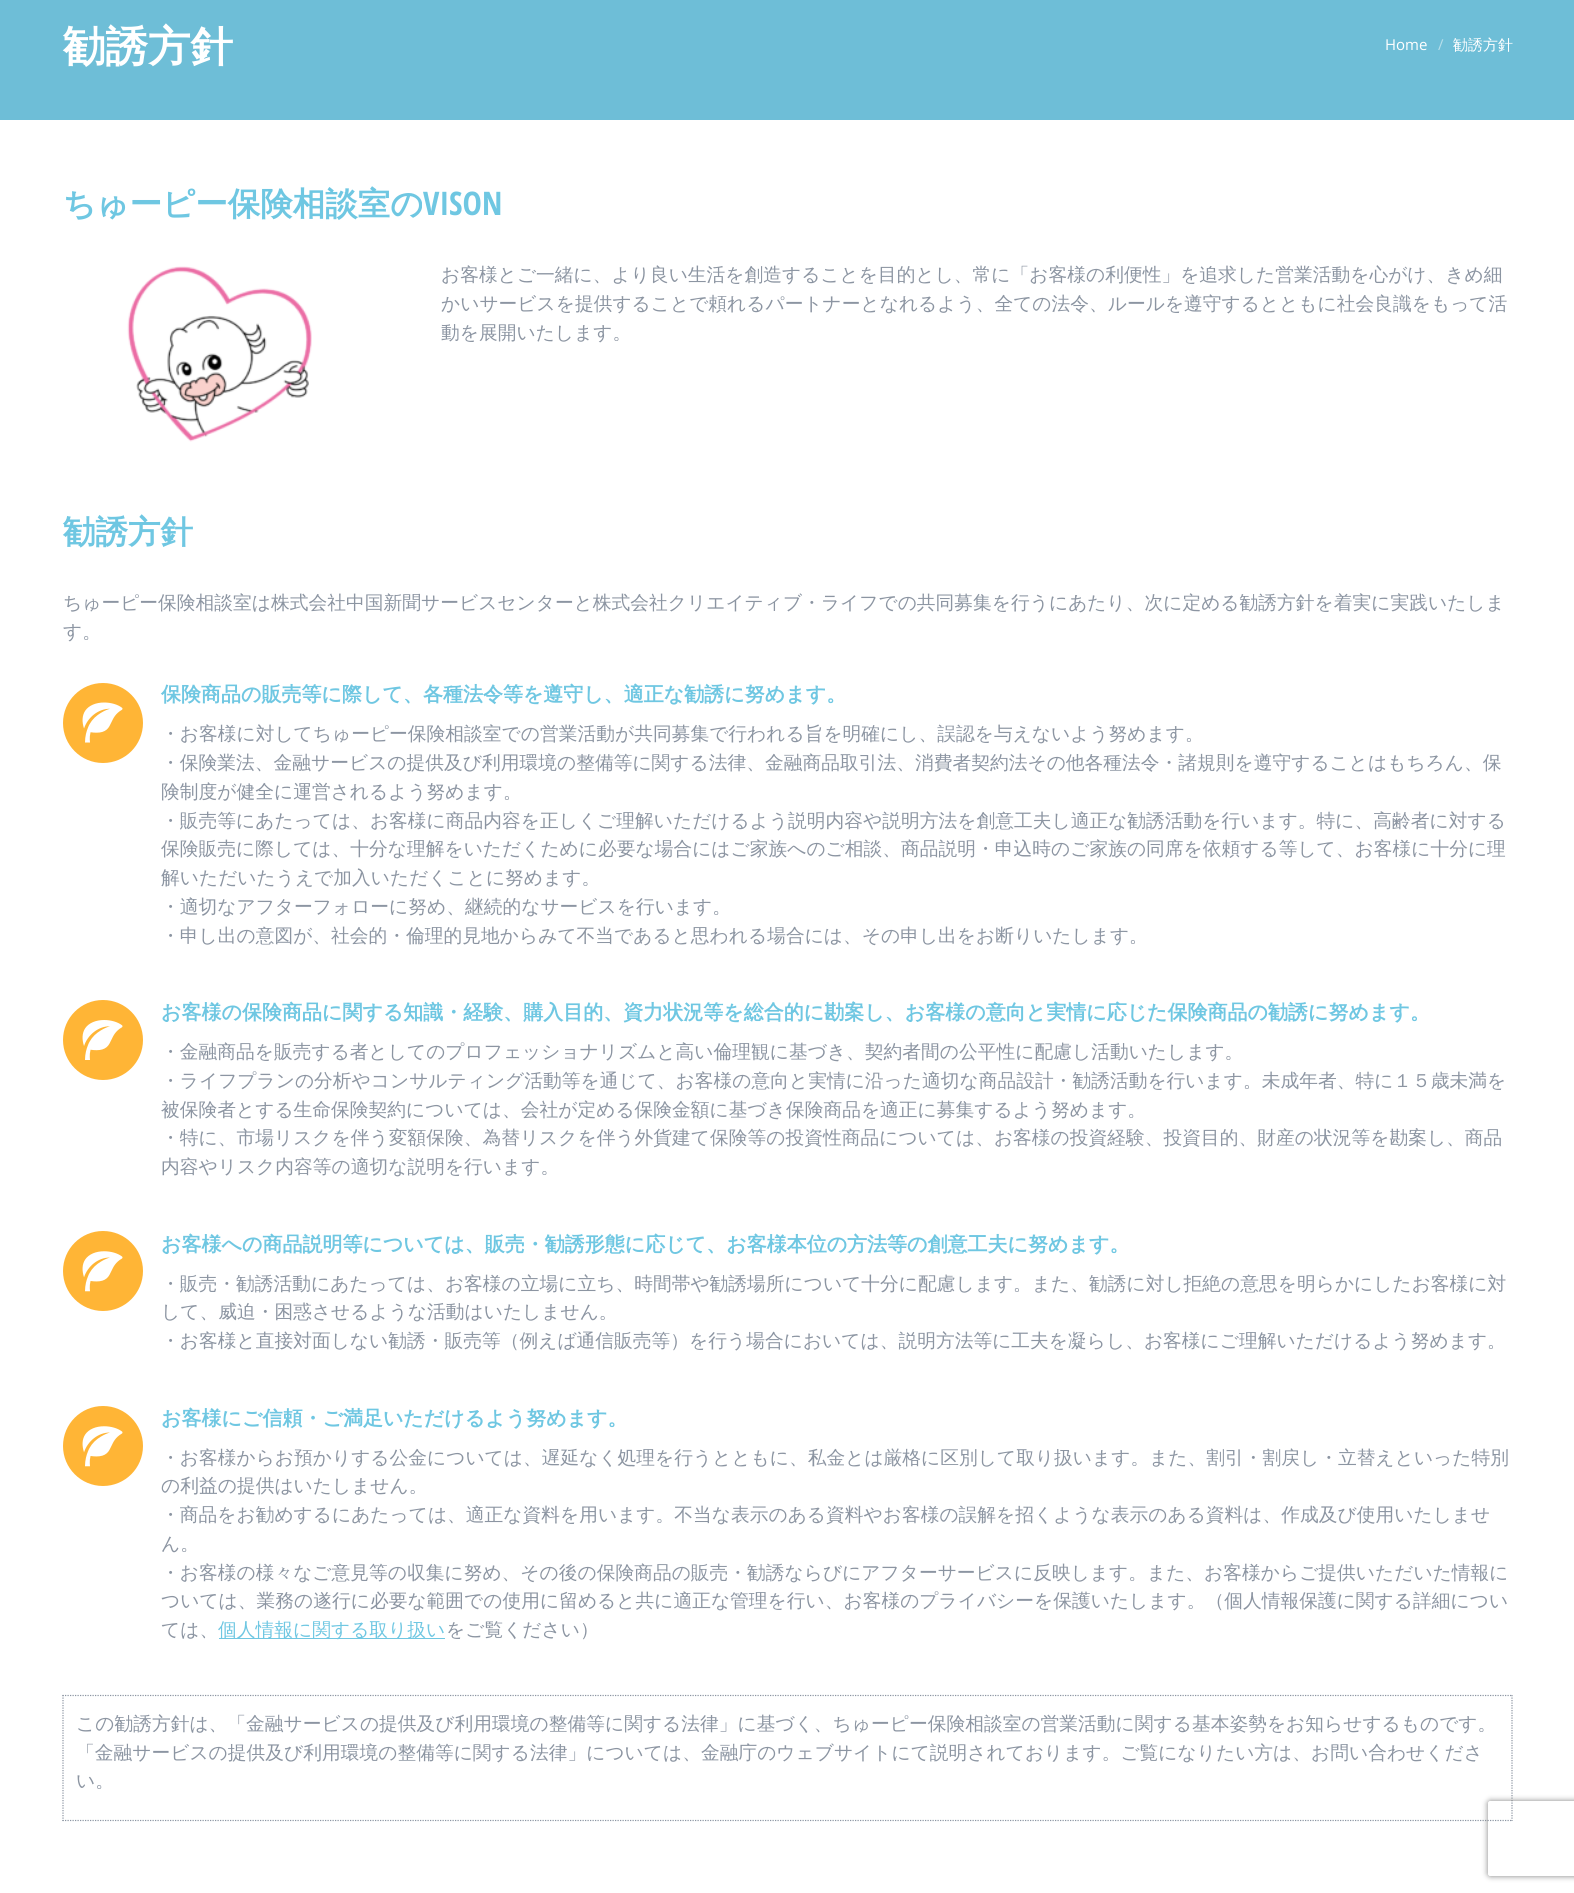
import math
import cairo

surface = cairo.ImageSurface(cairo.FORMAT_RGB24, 1574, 1893)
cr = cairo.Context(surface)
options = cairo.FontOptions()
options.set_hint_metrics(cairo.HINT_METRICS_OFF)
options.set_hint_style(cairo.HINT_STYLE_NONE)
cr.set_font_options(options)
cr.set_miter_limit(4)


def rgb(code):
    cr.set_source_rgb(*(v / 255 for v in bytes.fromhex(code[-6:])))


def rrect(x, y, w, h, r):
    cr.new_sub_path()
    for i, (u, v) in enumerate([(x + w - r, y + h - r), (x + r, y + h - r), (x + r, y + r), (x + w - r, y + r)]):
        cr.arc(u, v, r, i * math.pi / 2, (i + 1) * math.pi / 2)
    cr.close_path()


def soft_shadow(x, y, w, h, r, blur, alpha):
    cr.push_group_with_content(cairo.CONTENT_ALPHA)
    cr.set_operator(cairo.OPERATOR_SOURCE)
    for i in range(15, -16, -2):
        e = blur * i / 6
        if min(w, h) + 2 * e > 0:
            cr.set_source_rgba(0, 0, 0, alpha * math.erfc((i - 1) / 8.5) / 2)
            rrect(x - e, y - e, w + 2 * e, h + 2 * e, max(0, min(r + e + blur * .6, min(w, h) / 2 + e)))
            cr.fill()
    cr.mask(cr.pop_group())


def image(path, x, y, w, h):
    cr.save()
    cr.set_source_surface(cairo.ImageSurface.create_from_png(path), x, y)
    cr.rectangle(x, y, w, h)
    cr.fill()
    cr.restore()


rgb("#ffffff")
cr.paint()
rgb("#6ebed7")
cr.rectangle(0, 0, 1574, 120)
cr.fill()
image("img/1.png", 127, 266, 185, 176)
rgb("#ffb536")
cr.arc(103, 723, 40, 0, 2 * math.pi)
cr.fill()
image("img/2.png", 82, 702, 41, 41)
cr.arc(103, 1040, 40, 0, 2 * math.pi)
cr.fill()
image("img/3.png", 82, 1020, 41, 40)
cr.arc(103, 1271, 40, 0, 2 * math.pi)
cr.fill()
image("img/4.png", 82, 1251, 41, 41)
cr.arc(103, 1446, 40, 0, 2 * math.pi)
cr.fill()
image("img/4.png", 82, 1426, 41, 41)
rgb("#6fc7e2")
cr.rectangle(219, 1638, 226, 1)
cr.fill()
cr.new_path()
cr.move_to(62.5, 1695.5)
cr.line_to(1512.5, 1695.5)
rgb("#8c95a2")
cr.set_line_width(1.2)
cr.set_dash([1.25, 1.25])
cr.stroke()
cr.new_path()
cr.move_to(1512, 1695)
cr.line_to(1512, 1821)
cr.stroke()
cr.new_path()
cr.move_to(62.5, 1820.5)
cr.line_to(1512.5, 1820.5)
cr.stroke()
cr.new_path()
cr.move_to(63, 1695)
cr.line_to(63, 1821)
cr.stroke()
cr.save()
cr.set_fill_rule(cairo.FILL_RULE_EVEN_ODD)
cr.new_path()
cr.move_to(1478, 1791)
cr.line_to(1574, 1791)
cr.line_to(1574, 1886)
cr.line_to(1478, 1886)
cr.close_path()
cr.move_to(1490.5, 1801)
cr.line_to(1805.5, 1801)
cr.curve_to(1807, 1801, 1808, 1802, 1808, 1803.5)
cr.line_to(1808, 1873.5)
cr.curve_to(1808, 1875, 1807, 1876, 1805.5, 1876)
cr.line_to(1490.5, 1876)
cr.curve_to(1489, 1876, 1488, 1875, 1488, 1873.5)
cr.line_to(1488, 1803.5)
cr.curve_to(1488, 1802, 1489, 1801, 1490.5, 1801)
cr.close_path()
cr.clip()
rgb("#808080")
soft_shadow(1488, 1801, 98, 75, 2.5, 3, 1)
cr.restore()
cr.select_font_face("WenQuanYi Zen Hei", cairo.FONT_SLANT_NORMAL, cairo.FONT_WEIGHT_BOLD)
cr.set_font_size(42.5)
rgb("#ffffff")
cr.move_to(63, 61)
cr.show_text("勧誘方針")
cr.select_font_face("Open Sans")
cr.set_font_size(15)
cr.move_to(1385, 50)
cr.show_text("Home")
rgb("#b7dfeb")
cr.move_to(1438, 50)
cr.show_text("/")
cr.select_font_face("WenQuanYi Zen Hei Medium")
rgb("#ffffff")
cr.move_to(1453, 50)
cr.show_text("勧誘方針")
cr.select_font_face("WenQuanYi Zen Hei", cairo.FONT_SLANT_NORMAL, cairo.FONT_WEIGHT_BOLD)
cr.set_font_size(32.5)
rgb("#6fc7e2")
cr.move_to(63, 215)
cr.show_text("ちゅーピー保険相談室の")
cr.select_font_face("Open Sans Condensed", cairo.FONT_SLANT_NORMAL, cairo.FONT_WEIGHT_BOLD)
cr.move_to(423, 215)
cr.show_text("VISON")
cr.select_font_face("WenQuanYi Zen Hei Medium")
cr.set_font_size(18.75)
rgb("#8c95a2")
for x, y, s in [
    (441, 281, "お客様とご一緒に、より良い生活を創造することを目的とし、常に「お客様の利便性」を追求した営業活動を心がけ、きめ細"),
    (441, 310, "かいサービスを提供することで頼れるパートナーとなれるよう、全ての法令、ルールを遵守するとともに社会良識をもって活"),
    (441, 339, "動を展開いたします。"),
]:
    cr.move_to(x, y)
    cr.show_text(s)
cr.select_font_face("WenQuanYi Zen Hei", cairo.FONT_SLANT_NORMAL, cairo.FONT_WEIGHT_BOLD)
cr.set_font_size(32.5)
rgb("#6fc7e2")
cr.move_to(63, 543)
cr.show_text("勧誘方針")
cr.select_font_face("WenQuanYi Zen Hei Medium")
cr.set_font_size(18.75)
rgb("#8c95a2")
cr.move_to(63, 609)
cr.show_text("ちゅーピー保険相談室は株式会社中国新聞サービスセンターと株式会社クリエイティブ・ライフでの共同募集を行うにあたり、次に定める勧誘方針を着実に実践いたしま")
cr.move_to(63, 638)
cr.show_text("す。")
cr.select_font_face("WenQuanYi Zen Hei", cairo.FONT_SLANT_NORMAL, cairo.FONT_WEIGHT_BOLD)
cr.set_font_size(20)
rgb("#6fc7e2")
cr.move_to(161, 701)
cr.show_text("保険商品の販売等に際して、各種法令等を遵守し、適正な勧誘に努めます。")
cr.select_font_face("WenQuanYi Zen Hei Medium")
cr.set_font_size(18.75)
rgb("#8c95a2")
for x, y, s in [
    (161, 740, "・お客様に対してちゅーピー保険相談室での営業活動が共同募集で行われる旨を明確にし、誤認を与えないよう努めます。"),
    (161, 769, "・保険業法、金融サービスの提供及び利用環境の整備等に関する法律、金融商品取引法、消費者契約法その他各種法令・諸規則を遵守することはもちろん、保"),
    (161, 798, "険制度が健全に運営されるよう努めます。"),
    (161, 827, "・販売等にあたっては、お客様に商品内容を正しくご理解いただけるよう説明内容や説明方法を創意工夫し適正な勧誘活動を行います。特に、高齢者に対する"),
    (161, 855, "保険販売に際しては、十分な理解をいただくために必要な場合にはご家族へのご相談、商品説明・申込時のご家族の同席を依頼する等して、お客様に十分に理"),
    (161, 884, "解いただいたうえで加入いただくことに努めます。"),
    (161, 913, "・適切なアフターフォローに努め、継続的なサービスを行います。"),
    (161, 942, "・申し出の意図が、社会的・倫理的見地からみて不当であると思われる場合には、その申し出をお断りいたします。"),
]:
    cr.move_to(x, y)
    cr.show_text(s)
cr.select_font_face("WenQuanYi Zen Hei", cairo.FONT_SLANT_NORMAL, cairo.FONT_WEIGHT_BOLD)
cr.set_font_size(20)
rgb("#6fc7e2")
cr.move_to(161, 1019)
cr.show_text("お客様の保険商品に関する知識・経験、購入目的、資力状況等を総合的に勘案し、お客様の意向と実情に応じた保険商品の勧誘に努めます。")
cr.select_font_face("WenQuanYi Zen Hei Medium")
cr.set_font_size(18.75)
rgb("#8c95a2")
for x, y, s in [
    (161, 1058, "・金融商品を販売する者としてのプロフェッショナリズムと高い倫理観に基づき、契約者間の公平性に配慮し活動いたします。"),
    (161, 1087, "・ライフプランの分析やコンサルティング活動等を通じて、お客様の意向と実情に沿った適切な商品設計・勧誘活動を行います。未成年者、特に１５歳未満を"),
    (161, 1116, "被保険者とする生命保険契約については、会社が定める保険金額に基づき保険商品を適正に募集するよう努めます。"),
    (161, 1144, "・特に、市場リスクを伴う変額保険、為替リスクを伴う外貨建て保険等の投資性商品については、お客様の投資経験、投資目的、財産の状況等を勘案し、商品"),
    (161, 1173, "内容やリスク内容等の適切な説明を行います。"),
]:
    cr.move_to(x, y)
    cr.show_text(s)
cr.select_font_face("WenQuanYi Zen Hei", cairo.FONT_SLANT_NORMAL, cairo.FONT_WEIGHT_BOLD)
cr.set_font_size(20)
rgb("#6fc7e2")
cr.move_to(161, 1251)
cr.show_text("お客様への商品説明等については、販売・勧誘形態に応じて、お客様本位の方法等の創意工夫に努めます。")
cr.select_font_face("WenQuanYi Zen Hei Medium")
cr.set_font_size(18.75)
rgb("#8c95a2")
for x, y, s in [
    (161, 1290, "・販売・勧誘活動にあたっては、お客様の立場に立ち、時間帯や勧誘場所について十分に配慮します。また、勧誘に対し拒絶の意思を明らかにしたお客様に対"),
    (161, 1318, "して、威迫・困惑させるような活動はいたしません。"),
    (161, 1347, "・お客様と直接対面しない勧誘・販売等（例えば通信販売等）を行う場合においては、説明方法等に工夫を凝らし、お客様にご理解いただけるよう努めます。"),
]:
    cr.move_to(x, y)
    cr.show_text(s)
cr.select_font_face("WenQuanYi Zen Hei", cairo.FONT_SLANT_NORMAL, cairo.FONT_WEIGHT_BOLD)
cr.set_font_size(20)
rgb("#6fc7e2")
cr.move_to(161, 1425)
cr.show_text("お客様にご信頼・ご満足いただけるよう努めます。")
cr.select_font_face("WenQuanYi Zen Hei Medium")
cr.set_font_size(18.75)
rgb("#8c95a2")
for x, y, s in [
    (161, 1464, "・お客様からお預かりする公金については、遅延なく処理を行うとともに、私金とは厳格に区別して取り扱います。また、割引・割戻し・立替えといった特別"),
    (161, 1492, "の利益の提供はいたしません。"),
    (161, 1521, "・商品をお勧めするにあたっては、適正な資料を用います。不当な表示のある資料やお客様の誤解を招くような表示のある資料は、作成及び使用いたしませ"),
    (161, 1550, "ん。"),
    (161, 1579, "・お客様の様々なご意見等の収集に努め、その後の保険商品の販売・勧誘ならびにアフターサービスに反映します。また、お客様からご提供いただいた情報に"),
    (161, 1607, "ついては、業務の遂行に必要な範囲での使用に留めると共に適正な管理を行い、お客様のプライバシーを保護いたします。（個人情報保護に関する詳細につい"),
    (161, 1636, "ては、"),
]:
    cr.move_to(x, y)
    cr.show_text(s)
rgb("#6fc7e2")
cr.move_to(218, 1636)
cr.show_text("個人情報に関する取り扱い")
rgb("#8c95a2")
for x, y, s in [
    (446, 1636, "をご覧ください）"),
    (76, 1730, "この勧誘方針は、「金融サービスの提供及び利用環境の整備等に関する法律」に基づく、ちゅーピー保険相談室の営業活動に関する基本姿勢をお知らせするものです。"),
    (76, 1759, "「金融サービスの提供及び利用環境の整備等に関する法律」については、金融庁のウェブサイトにて説明されております。ご覧になりたい方は、お問い合わせくださ"),
    (76, 1787, "い。"),
]:
    cr.move_to(x, y)
    cr.show_text(s)
surface.write_to_png("page.png")
